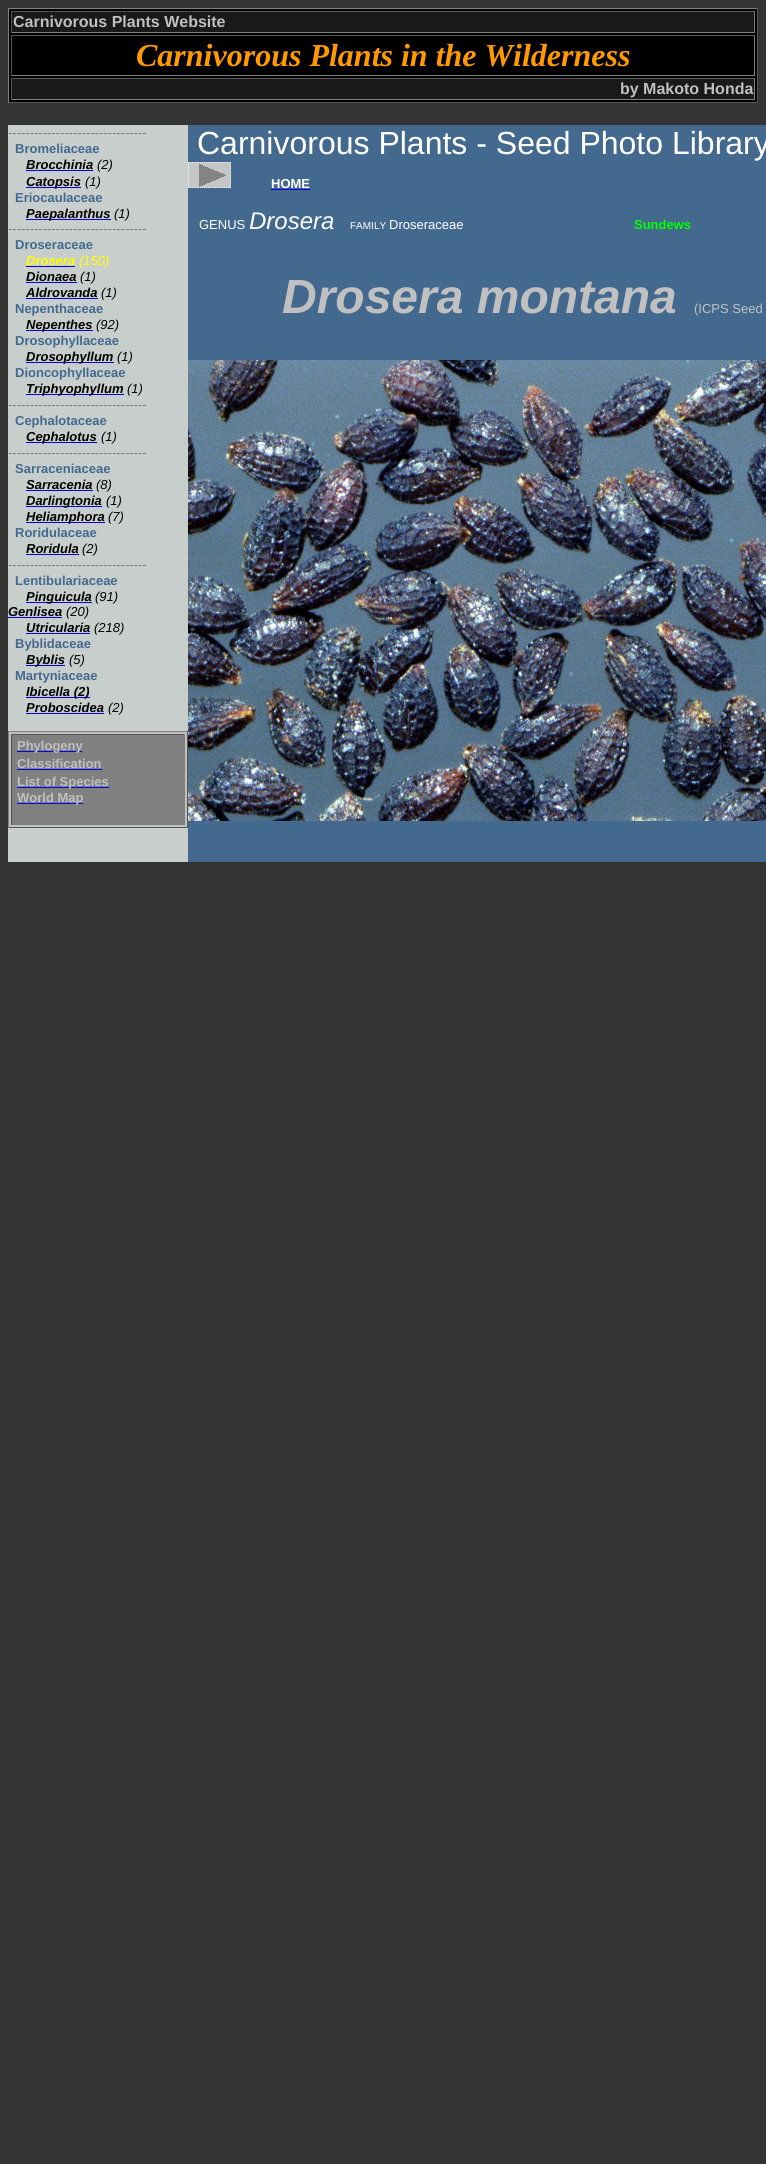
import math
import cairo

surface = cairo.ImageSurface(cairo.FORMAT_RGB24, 766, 2164)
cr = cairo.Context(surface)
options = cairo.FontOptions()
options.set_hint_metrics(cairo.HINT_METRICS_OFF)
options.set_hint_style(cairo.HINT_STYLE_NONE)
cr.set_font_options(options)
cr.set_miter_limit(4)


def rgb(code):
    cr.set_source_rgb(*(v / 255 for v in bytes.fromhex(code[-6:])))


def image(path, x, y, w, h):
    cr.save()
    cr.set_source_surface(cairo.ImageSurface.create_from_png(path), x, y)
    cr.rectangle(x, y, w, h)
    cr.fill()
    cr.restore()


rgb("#333333")
cr.paint()
for x, y, w, h, color in [
    (9, 9, 748, 93, "#000000"),
    (8, 8, 750, 1, "#808080"),
    (757, 8, 1, 95, "#555555"),
    (8, 102, 750, 1, "#555555"),
    (8, 8, 1, 95, "#808080"),
    (12, 12, 742, 20, "#191919"),
    (11, 11, 744, 1, "#555555"),
    (754, 11, 1, 22, "#808080"),
    (11, 32, 744, 1, "#808080"),
    (11, 11, 1, 22, "#555555"),
    (11, 35, 744, 1, "#555555"),
    (754, 35, 1, 41, "#808080"),
    (11, 75, 744, 1, "#808080"),
    (11, 35, 1, 41, "#555555"),
    (12, 79, 742, 20, "#191919"),
    (11, 78, 744, 1, "#555555"),
    (754, 78, 1, 22, "#808080"),
    (11, 99, 744, 1, "#808080"),
    (11, 78, 1, 22, "#555555"),
    (8, 125, 180, 737, "#c8cecc"),
    (26, 170, 67, 1, "#0000ee"),
    (26, 187, 55, 1, "#0000ee"),
    (26, 219, 85, 1, "#0000ee"),
    (26, 266, 49, 1, "#0000ee"),
    (26, 282, 51, 1, "#0000ee"),
    (26, 298, 72, 1, "#0000ee"),
    (26, 330, 67, 1, "#0000ee"),
    (26, 362, 88, 1, "#0000ee"),
    (26, 394, 98, 1, "#0000ee"),
    (26, 442, 71, 1, "#0000ee"),
    (26, 490, 67, 1, "#0000ee"),
    (26, 506, 76, 1, "#0000ee"),
    (26, 522, 79, 1, "#0000ee"),
    (26, 554, 53, 1, "#0000ee"),
    (26, 602, 66, 1, "#0000ee"),
    (8, 617, 54, 1, "#0000ee"),
    (26, 633, 64, 1, "#0000ee"),
    (26, 665, 39, 1, "#0000ee"),
    (26, 697, 64, 1, "#0000ee"),
    (26, 713, 78, 1, "#0000ee"),
    (9, 732, 178, 95, "#c0c0c0"),
    (8, 731, 180, 1, "#808080"),
    (187, 731, 1, 97, "#555555"),
    (8, 827, 180, 1, "#555555"),
    (8, 731, 1, 97, "#808080"),
    (12, 735, 172, 90, "#808080"),
    (11, 734, 174, 1, "#555555"),
    (184, 734, 1, 91, "#808080"),
    (11, 734, 1, 91, "#555555"),
    (17, 751, 65, 1, "#0000ee"),
    (17, 769, 85, 1, "#0000ee"),
    (17, 787, 92, 1, "#0000ee"),
    (17, 803, 66, 1, "#0000ee"),
    (188, 125, 578, 737, "#43698f"),
]:
    rgb(color)
    cr.rectangle(x, y, w, h)
    cr.fill()
image("img/1.png", 188, 162, 43, 26)
rgb("#0000ee")
cr.rectangle(271, 189, 39, 1)
cr.fill()
image("img/2.png", 188, 360, 578, 461)
cr.select_font_face("Liberation Sans", cairo.FONT_SLANT_NORMAL, cairo.FONT_WEIGHT_BOLD)
cr.set_font_size(16)
rgb("#c0c0c0")
cr.move_to(13, 27)
cr.show_text("Carnivorous Plants Website")
cr.select_font_face("Liberation Serif", cairo.FONT_SLANT_ITALIC, cairo.FONT_WEIGHT_BOLD)
cr.set_font_size(32)
rgb("#ff9900")
cr.move_to(136, 66)
cr.show_text("Carnivorous Plants in the Wilderness")
cr.select_font_face("Liberation Sans", cairo.FONT_SLANT_NORMAL, cairo.FONT_WEIGHT_BOLD)
cr.set_font_size(16)
rgb("#c0c0c0")
cr.move_to(620, 94)
cr.show_text("by Makoto Honda")
cr.select_font_face("Liberation Sans", cairo.FONT_SLANT_ITALIC)
cr.set_font_size(13)
rgb("#808080")
cr.move_to(8, 137)
cr.show_text("--------------------------------")
cr.select_font_face("Liberation Sans", cairo.FONT_SLANT_NORMAL, cairo.FONT_WEIGHT_BOLD)
rgb("#43698f")
cr.move_to(15, 153)
cr.show_text("Bromeliaceae")
cr.select_font_face("Liberation Sans", cairo.FONT_SLANT_ITALIC, cairo.FONT_WEIGHT_BOLD)
rgb("#000000")
cr.move_to(26, 169)
cr.show_text("Brocchinia")
cr.select_font_face("Liberation Sans", cairo.FONT_SLANT_ITALIC)
cr.move_to(97, 169)
cr.show_text("(2)")
cr.select_font_face("Liberation Sans", cairo.FONT_SLANT_ITALIC, cairo.FONT_WEIGHT_BOLD)
cr.move_to(26, 186)
cr.show_text("Catopsis")
cr.select_font_face("Liberation Sans", cairo.FONT_SLANT_ITALIC)
cr.move_to(85, 186)
cr.show_text("(1)")
cr.select_font_face("Liberation Sans", cairo.FONT_SLANT_NORMAL, cairo.FONT_WEIGHT_BOLD)
rgb("#43698f")
cr.move_to(15, 202)
cr.show_text("Eriocaulaceae")
cr.select_font_face("Liberation Sans", cairo.FONT_SLANT_ITALIC, cairo.FONT_WEIGHT_BOLD)
rgb("#000000")
cr.move_to(26, 218)
cr.show_text("Paepalanthus")
cr.select_font_face("Liberation Sans", cairo.FONT_SLANT_ITALIC)
cr.move_to(114, 218)
cr.show_text("(1)")
rgb("#808080")
cr.move_to(8, 233)
cr.show_text("--------------------------------")
cr.select_font_face("Liberation Sans", cairo.FONT_SLANT_NORMAL, cairo.FONT_WEIGHT_BOLD)
rgb("#43698f")
cr.move_to(15, 249)
cr.show_text("Droseraceae")
cr.select_font_face("Liberation Sans", cairo.FONT_SLANT_ITALIC, cairo.FONT_WEIGHT_BOLD)
rgb("#ffff00")
cr.move_to(26, 265)
cr.show_text("Drosera")
cr.select_font_face("Liberation Sans", cairo.FONT_SLANT_ITALIC)
cr.move_to(79, 265)
cr.show_text("(150)")
cr.select_font_face("Liberation Sans", cairo.FONT_SLANT_ITALIC, cairo.FONT_WEIGHT_BOLD)
rgb("#000000")
cr.move_to(26, 281)
cr.show_text("Dionaea")
cr.select_font_face("Liberation Sans", cairo.FONT_SLANT_ITALIC)
cr.move_to(80, 281)
cr.show_text("(1)")
cr.select_font_face("Liberation Sans", cairo.FONT_SLANT_ITALIC, cairo.FONT_WEIGHT_BOLD)
cr.move_to(26, 297)
cr.show_text("Aldrovanda")
cr.select_font_face("Liberation Sans", cairo.FONT_SLANT_ITALIC)
cr.move_to(101, 297)
cr.show_text("(1)")
cr.select_font_face("Liberation Sans", cairo.FONT_SLANT_NORMAL, cairo.FONT_WEIGHT_BOLD)
rgb("#43698f")
cr.move_to(15, 313)
cr.show_text("Nepenthaceae")
cr.select_font_face("Liberation Sans", cairo.FONT_SLANT_ITALIC, cairo.FONT_WEIGHT_BOLD)
rgb("#000000")
cr.move_to(26, 329)
cr.show_text("Nepenthes")
cr.select_font_face("Liberation Sans", cairo.FONT_SLANT_ITALIC)
cr.move_to(96, 329)
cr.show_text("(92)")
cr.select_font_face("Liberation Sans", cairo.FONT_SLANT_NORMAL, cairo.FONT_WEIGHT_BOLD)
rgb("#43698f")
cr.move_to(15, 345)
cr.show_text("Drosophyllaceae")
cr.select_font_face("Liberation Sans", cairo.FONT_SLANT_ITALIC, cairo.FONT_WEIGHT_BOLD)
rgb("#000000")
cr.move_to(26, 361)
cr.show_text("Drosophyllum")
cr.select_font_face("Liberation Sans", cairo.FONT_SLANT_ITALIC)
cr.move_to(117, 361)
cr.show_text("(1)")
cr.select_font_face("Liberation Sans", cairo.FONT_SLANT_NORMAL, cairo.FONT_WEIGHT_BOLD)
rgb("#43698f")
cr.move_to(15, 377)
cr.show_text("Dioncophyllaceae")
cr.select_font_face("Liberation Sans", cairo.FONT_SLANT_ITALIC, cairo.FONT_WEIGHT_BOLD)
rgb("#000000")
cr.move_to(26, 393)
cr.show_text("Triphyophyllum")
cr.select_font_face("Liberation Sans", cairo.FONT_SLANT_ITALIC)
cr.move_to(127, 393)
cr.show_text("(1)")
rgb("#808080")
cr.move_to(8, 409)
cr.show_text("--------------------------------")
cr.select_font_face("Liberation Sans", cairo.FONT_SLANT_NORMAL, cairo.FONT_WEIGHT_BOLD)
rgb("#43698f")
cr.move_to(15, 425)
cr.show_text("Cephalotaceae")
cr.select_font_face("Liberation Sans", cairo.FONT_SLANT_ITALIC, cairo.FONT_WEIGHT_BOLD)
rgb("#000000")
cr.move_to(26, 441)
cr.show_text("Cephalotus")
cr.select_font_face("Liberation Sans", cairo.FONT_SLANT_ITALIC)
cr.move_to(101, 441)
cr.show_text("(1)")
rgb("#808080")
cr.move_to(8, 457)
cr.show_text("--------------------------------")
cr.select_font_face("Liberation Sans", cairo.FONT_SLANT_NORMAL, cairo.FONT_WEIGHT_BOLD)
rgb("#43698f")
cr.move_to(15, 473)
cr.show_text("Sarraceniaceae")
cr.select_font_face("Liberation Sans", cairo.FONT_SLANT_ITALIC, cairo.FONT_WEIGHT_BOLD)
rgb("#000000")
cr.move_to(26, 489)
cr.show_text("Sarracenia")
cr.select_font_face("Liberation Sans", cairo.FONT_SLANT_ITALIC)
cr.move_to(96, 489)
cr.show_text("(8)")
cr.select_font_face("Liberation Sans", cairo.FONT_SLANT_ITALIC, cairo.FONT_WEIGHT_BOLD)
cr.move_to(26, 505)
cr.show_text("Darlingtonia")
cr.select_font_face("Liberation Sans", cairo.FONT_SLANT_ITALIC)
cr.move_to(106, 505)
cr.show_text("(1)")
cr.select_font_face("Liberation Sans", cairo.FONT_SLANT_ITALIC, cairo.FONT_WEIGHT_BOLD)
cr.move_to(26, 521)
cr.show_text("Heliamphora")
cr.select_font_face("Liberation Sans", cairo.FONT_SLANT_ITALIC)
cr.move_to(108, 521)
cr.show_text("(7)")
cr.select_font_face("Liberation Sans", cairo.FONT_SLANT_NORMAL, cairo.FONT_WEIGHT_BOLD)
rgb("#43698f")
cr.move_to(15, 537)
cr.show_text("Roridulaceae")
cr.select_font_face("Liberation Sans", cairo.FONT_SLANT_ITALIC, cairo.FONT_WEIGHT_BOLD)
rgb("#000000")
cr.move_to(26, 553)
cr.show_text("Roridula")
cr.select_font_face("Liberation Sans", cairo.FONT_SLANT_ITALIC)
cr.move_to(82, 553)
cr.show_text("(2)")
rgb("#808080")
cr.move_to(8, 569)
cr.show_text("--------------------------------")
cr.select_font_face("Liberation Sans", cairo.FONT_SLANT_NORMAL, cairo.FONT_WEIGHT_BOLD)
rgb("#43698f")
cr.move_to(15, 585)
cr.show_text("Lentibulariaceae")
cr.select_font_face("Liberation Sans", cairo.FONT_SLANT_ITALIC, cairo.FONT_WEIGHT_BOLD)
rgb("#000000")
cr.move_to(26, 601)
cr.show_text("Pinguicula")
cr.select_font_face("Liberation Sans", cairo.FONT_SLANT_ITALIC)
cr.move_to(95, 601)
cr.show_text("(91)")
cr.select_font_face("Liberation Sans", cairo.FONT_SLANT_ITALIC, cairo.FONT_WEIGHT_BOLD)
cr.move_to(8, 616)
cr.show_text("Genlisea")
cr.select_font_face("Liberation Sans", cairo.FONT_SLANT_ITALIC)
cr.move_to(66, 616)
cr.show_text("(20)")
cr.select_font_face("Liberation Sans", cairo.FONT_SLANT_ITALIC, cairo.FONT_WEIGHT_BOLD)
cr.move_to(26, 632)
cr.show_text("Utricularia")
cr.select_font_face("Liberation Sans", cairo.FONT_SLANT_ITALIC)
cr.move_to(94, 632)
cr.show_text("(218)")
cr.select_font_face("Liberation Sans", cairo.FONT_SLANT_NORMAL, cairo.FONT_WEIGHT_BOLD)
rgb("#43698f")
cr.move_to(15, 648)
cr.show_text("Byblidaceae")
cr.select_font_face("Liberation Sans", cairo.FONT_SLANT_ITALIC, cairo.FONT_WEIGHT_BOLD)
rgb("#000000")
cr.move_to(26, 664)
cr.show_text("Byblis")
cr.select_font_face("Liberation Sans", cairo.FONT_SLANT_ITALIC)
cr.move_to(69, 664)
cr.show_text("(5)")
cr.select_font_face("Liberation Sans", cairo.FONT_SLANT_NORMAL, cairo.FONT_WEIGHT_BOLD)
rgb("#43698f")
cr.move_to(15, 680)
cr.show_text("Martyniaceae")
cr.select_font_face("Liberation Sans", cairo.FONT_SLANT_ITALIC, cairo.FONT_WEIGHT_BOLD)
rgb("#000000")
cr.move_to(26, 696)
cr.show_text("Ibicella (2)")
cr.move_to(26, 712)
cr.show_text("Proboscidea")
cr.select_font_face("Liberation Sans", cairo.FONT_SLANT_ITALIC)
cr.move_to(108, 712)
cr.show_text("(2)")
cr.select_font_face("Liberation Sans", cairo.FONT_SLANT_NORMAL, cairo.FONT_WEIGHT_BOLD)
rgb("#c0c0c0")
for x, y, s in [
    (17, 750, "Phylogeny"),
    (17, 768, "Classification"),
    (17, 786, "List of Species"),
    (17, 802, "World Map"),
]:
    cr.move_to(x, y)
    cr.show_text(s)
cr.select_font_face("Liberation Sans")
cr.set_font_size(32)
rgb("#ffffff")
cr.move_to(197, 154)
cr.show_text("Carnivorous Plants - Seed Photo Library")
cr.select_font_face("Liberation Sans", cairo.FONT_SLANT_NORMAL, cairo.FONT_WEIGHT_BOLD)
cr.set_font_size(13)
cr.move_to(271, 188)
cr.show_text("HOME")
cr.select_font_face("Liberation Sans")
cr.move_to(199, 229)
cr.show_text("GENUS")
cr.select_font_face("Liberation Sans", cairo.FONT_SLANT_ITALIC)
cr.set_font_size(24)
cr.move_to(249, 229)
cr.show_text("Drosera")
cr.select_font_face("Liberation Sans")
cr.set_font_size(10)
cr.move_to(350, 229)
cr.show_text("FAMILY")
cr.set_font_size(13)
cr.move_to(389, 229)
cr.show_text("Droseraceae")
cr.select_font_face("Liberation Sans", cairo.FONT_SLANT_NORMAL, cairo.FONT_WEIGHT_BOLD)
rgb("#00ff00")
cr.move_to(634, 229)
cr.show_text("Sundews")
cr.select_font_face("Liberation Sans", cairo.FONT_SLANT_ITALIC, cairo.FONT_WEIGHT_BOLD)
cr.set_font_size(48)
rgb("#c0c0c0")
cr.move_to(282, 313)
cr.show_text("Drosera montana")
cr.select_font_face("Liberation Sans")
cr.set_font_size(13)
cr.move_to(694, 313)
cr.show_text("(ICPS Seed")
surface.write_to_png("page.png")
